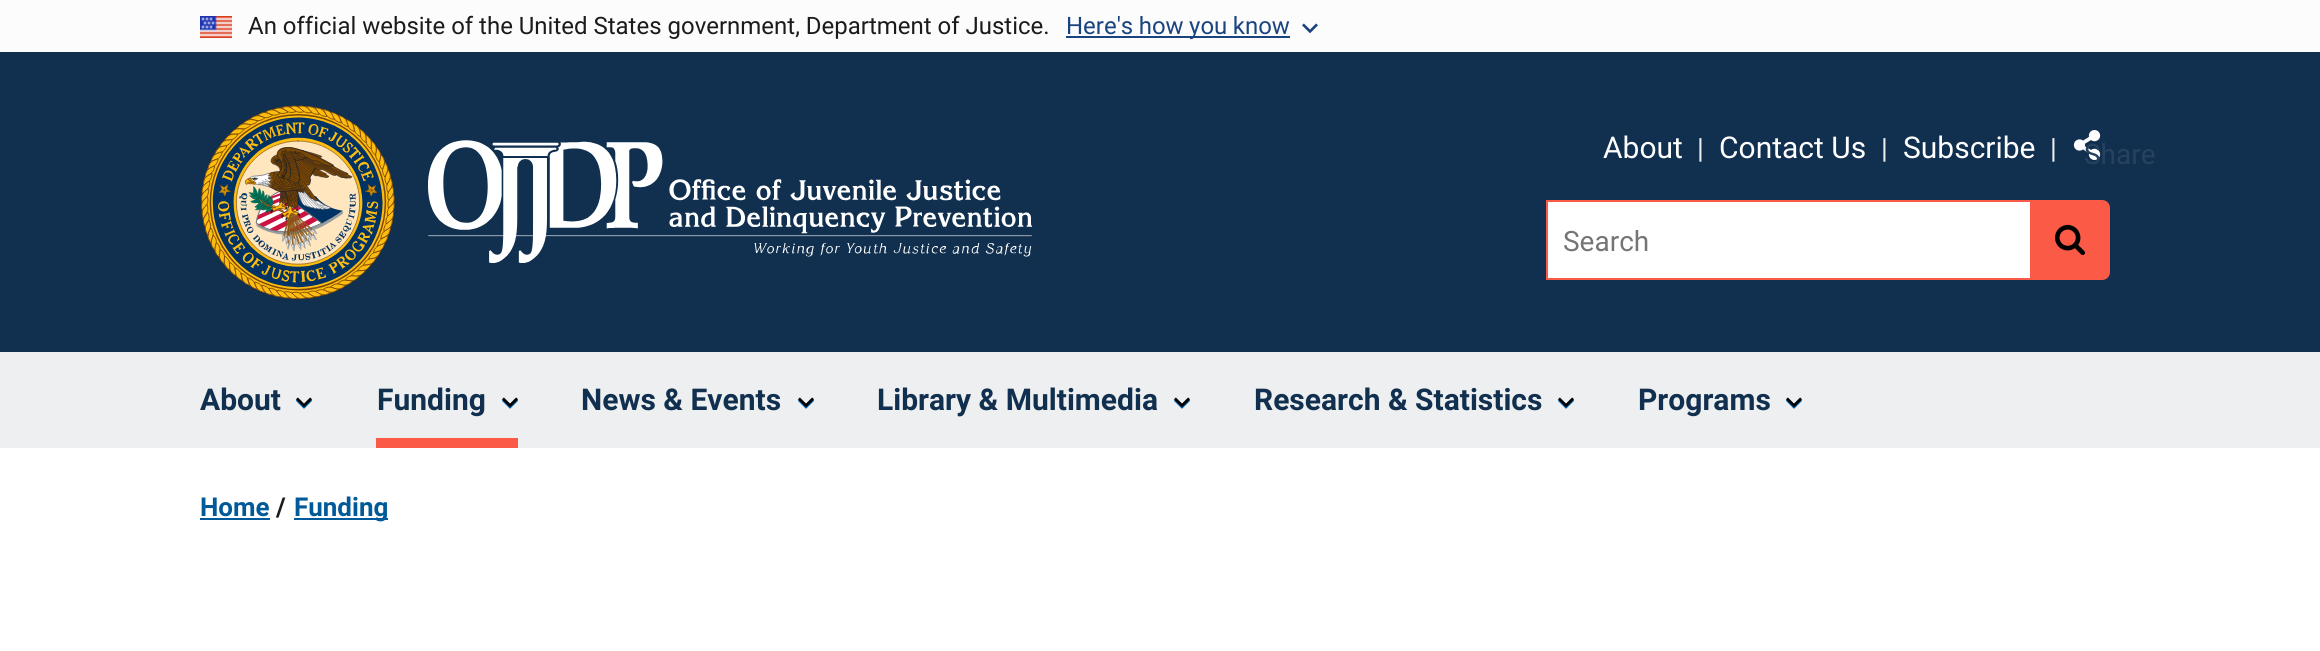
import math
import cairo

surface = cairo.ImageSurface(cairo.FORMAT_RGB24, 2320, 651)
cr = cairo.Context(surface)
options = cairo.FontOptions()
options.set_hint_metrics(cairo.HINT_METRICS_OFF)
options.set_hint_style(cairo.HINT_STYLE_NONE)
cr.set_font_options(options)
cr.set_miter_limit(4)


def rgb(code):
    cr.set_source_rgb(*(v / 255 for v in bytes.fromhex(code[-6:])))


def tracked(x, y, s, letter, word):
    cr.move_to(x, y)
    for ch in s:
        cr.show_text(ch)
        cr.rel_move_to(letter + word * (ch == ' '), 0)


def image(path, x, y, w, h):
    cr.save()
    cr.set_source_surface(cairo.ImageSurface.create_from_png(path), x, y)
    cr.rectangle(x, y, w, h)
    cr.fill()
    cr.restore()


rgb("#ffffff")
cr.paint()
rgb("#fcfcfc")
cr.rectangle(0, 0, 2320, 52)
cr.fill()
image("img/1.png", 200, 16, 32, 22)
rgb("#1a4480")
cr.rectangle(1066, 36, 224, 2)
cr.fill()
image("img/2.png", 1302, 23, 16, 11)
rgb("#112f4e")
cr.rectangle(0, 52, 2320, 300)
cr.fill()
image("img/3.png", 201, 105, 194, 195)
image("img/4.png", 428, 140, 604, 123)
rgb("#edeff0")
cr.rectangle(0, 352, 2320, 96)
cr.fill()
image("img/5.png", 2073, 130, 28, 30)
for x, y, w, h, color in [
    (1548, 202, 482, 76, "#ffffff"),
    (1546, 200, 484, 2, "#fb5a47"),
    (1546, 278, 484, 2, "#fb5a47"),
    (1546, 200, 2, 80, "#fb5a47"),
]:
    rgb(color)
    cr.rectangle(x, y, w, h)
    cr.fill()
cr.new_path()
cr.move_to(2030, 200)
cr.line_to(2102, 200)
cr.curve_to(2106.5, 200, 2110, 203.5, 2110, 208)
cr.line_to(2110, 272)
cr.curve_to(2110, 276.5, 2106.5, 280, 2102, 280)
cr.line_to(2030, 280)
cr.close_path()
cr.fill()
image("img/6.png", 2054, 224, 31, 31)
image("img/7.png", 296, 399, 16, 10)
image("img/8.png", 296, 397, 16, 11)
image("img/7.png", 502, 399, 16, 10)
image("img/8.png", 502, 397, 16, 11)
cr.rectangle(376, 438, 142, 10)
cr.fill()
image("img/7.png", 798, 399, 16, 10)
image("img/8.png", 798, 397, 16, 11)
image("img/7.png", 1174, 399, 16, 10)
image("img/8.png", 1174, 397, 16, 11)
image("img/7.png", 1558, 399, 16, 10)
image("img/8.png", 1558, 397, 16, 11)
image("img/7.png", 1786, 399, 16, 10)
image("img/8.png", 1786, 397, 16, 11)
rgb("#005999")
cr.rectangle(200, 518, 70, 2)
cr.fill()
cr.rectangle(294, 518, 94, 2)
cr.fill()
cr.select_font_face("Roboto")
cr.set_font_size(24)
rgb("#1b1b1b")
cr.move_to(248, 34)
cr.show_text("An official website of the United States government, Department of Justice.")
rgb("#1a4480")
tracked(1066, 34, "Here's how you know", 0, -0.5)
cr.set_font_size(30)
rgb("#ffffff")
cr.move_to(1603, 158)
cr.show_text("About")
cr.set_font_size(28)
rgb("#edeff0")
cr.move_to(1697, 158)
cr.show_text("|")
cr.set_font_size(30)
rgb("#ffffff")
cr.move_to(1719, 158)
cr.show_text("Contact Us")
cr.set_font_size(28)
rgb("#edeff0")
cr.move_to(1881, 158)
cr.show_text("|")
cr.set_font_size(30)
rgb("#ffffff")
cr.move_to(1903, 158)
cr.show_text("Subscribe")
cr.set_font_size(28)
rgb("#edeff0")
cr.move_to(2050, 158)
cr.show_text("|")
rgb("#27425e")
cr.move_to(2084, 164)
cr.show_text("Share")
rgb("#757575")
cr.move_to(1563, 251)
cr.show_text("Search")
cr.select_font_face("Roboto", cairo.FONT_SLANT_NORMAL, cairo.FONT_WEIGHT_BOLD)
cr.set_font_size(30)
rgb("#112f4e")
for x, y, s in [
    (200, 410, "About"),
    (377, 410, "Funding"),
    (581, 410, "News & Events"),
    (877, 410, "Library & Multimedia"),
    (1254, 410, "Research & Statistics"),
    (1638, 410, "Programs"),
]:
    cr.move_to(x, y)
    cr.show_text(s)
cr.set_font_size(26)
rgb("#005999")
cr.move_to(200, 516)
cr.show_text("Home")
rgb("#1b1b1b")
cr.move_to(276, 516)
cr.show_text("/")
rgb("#005999")
cr.move_to(294, 516)
cr.show_text("Funding")
surface.write_to_png("page.png")
